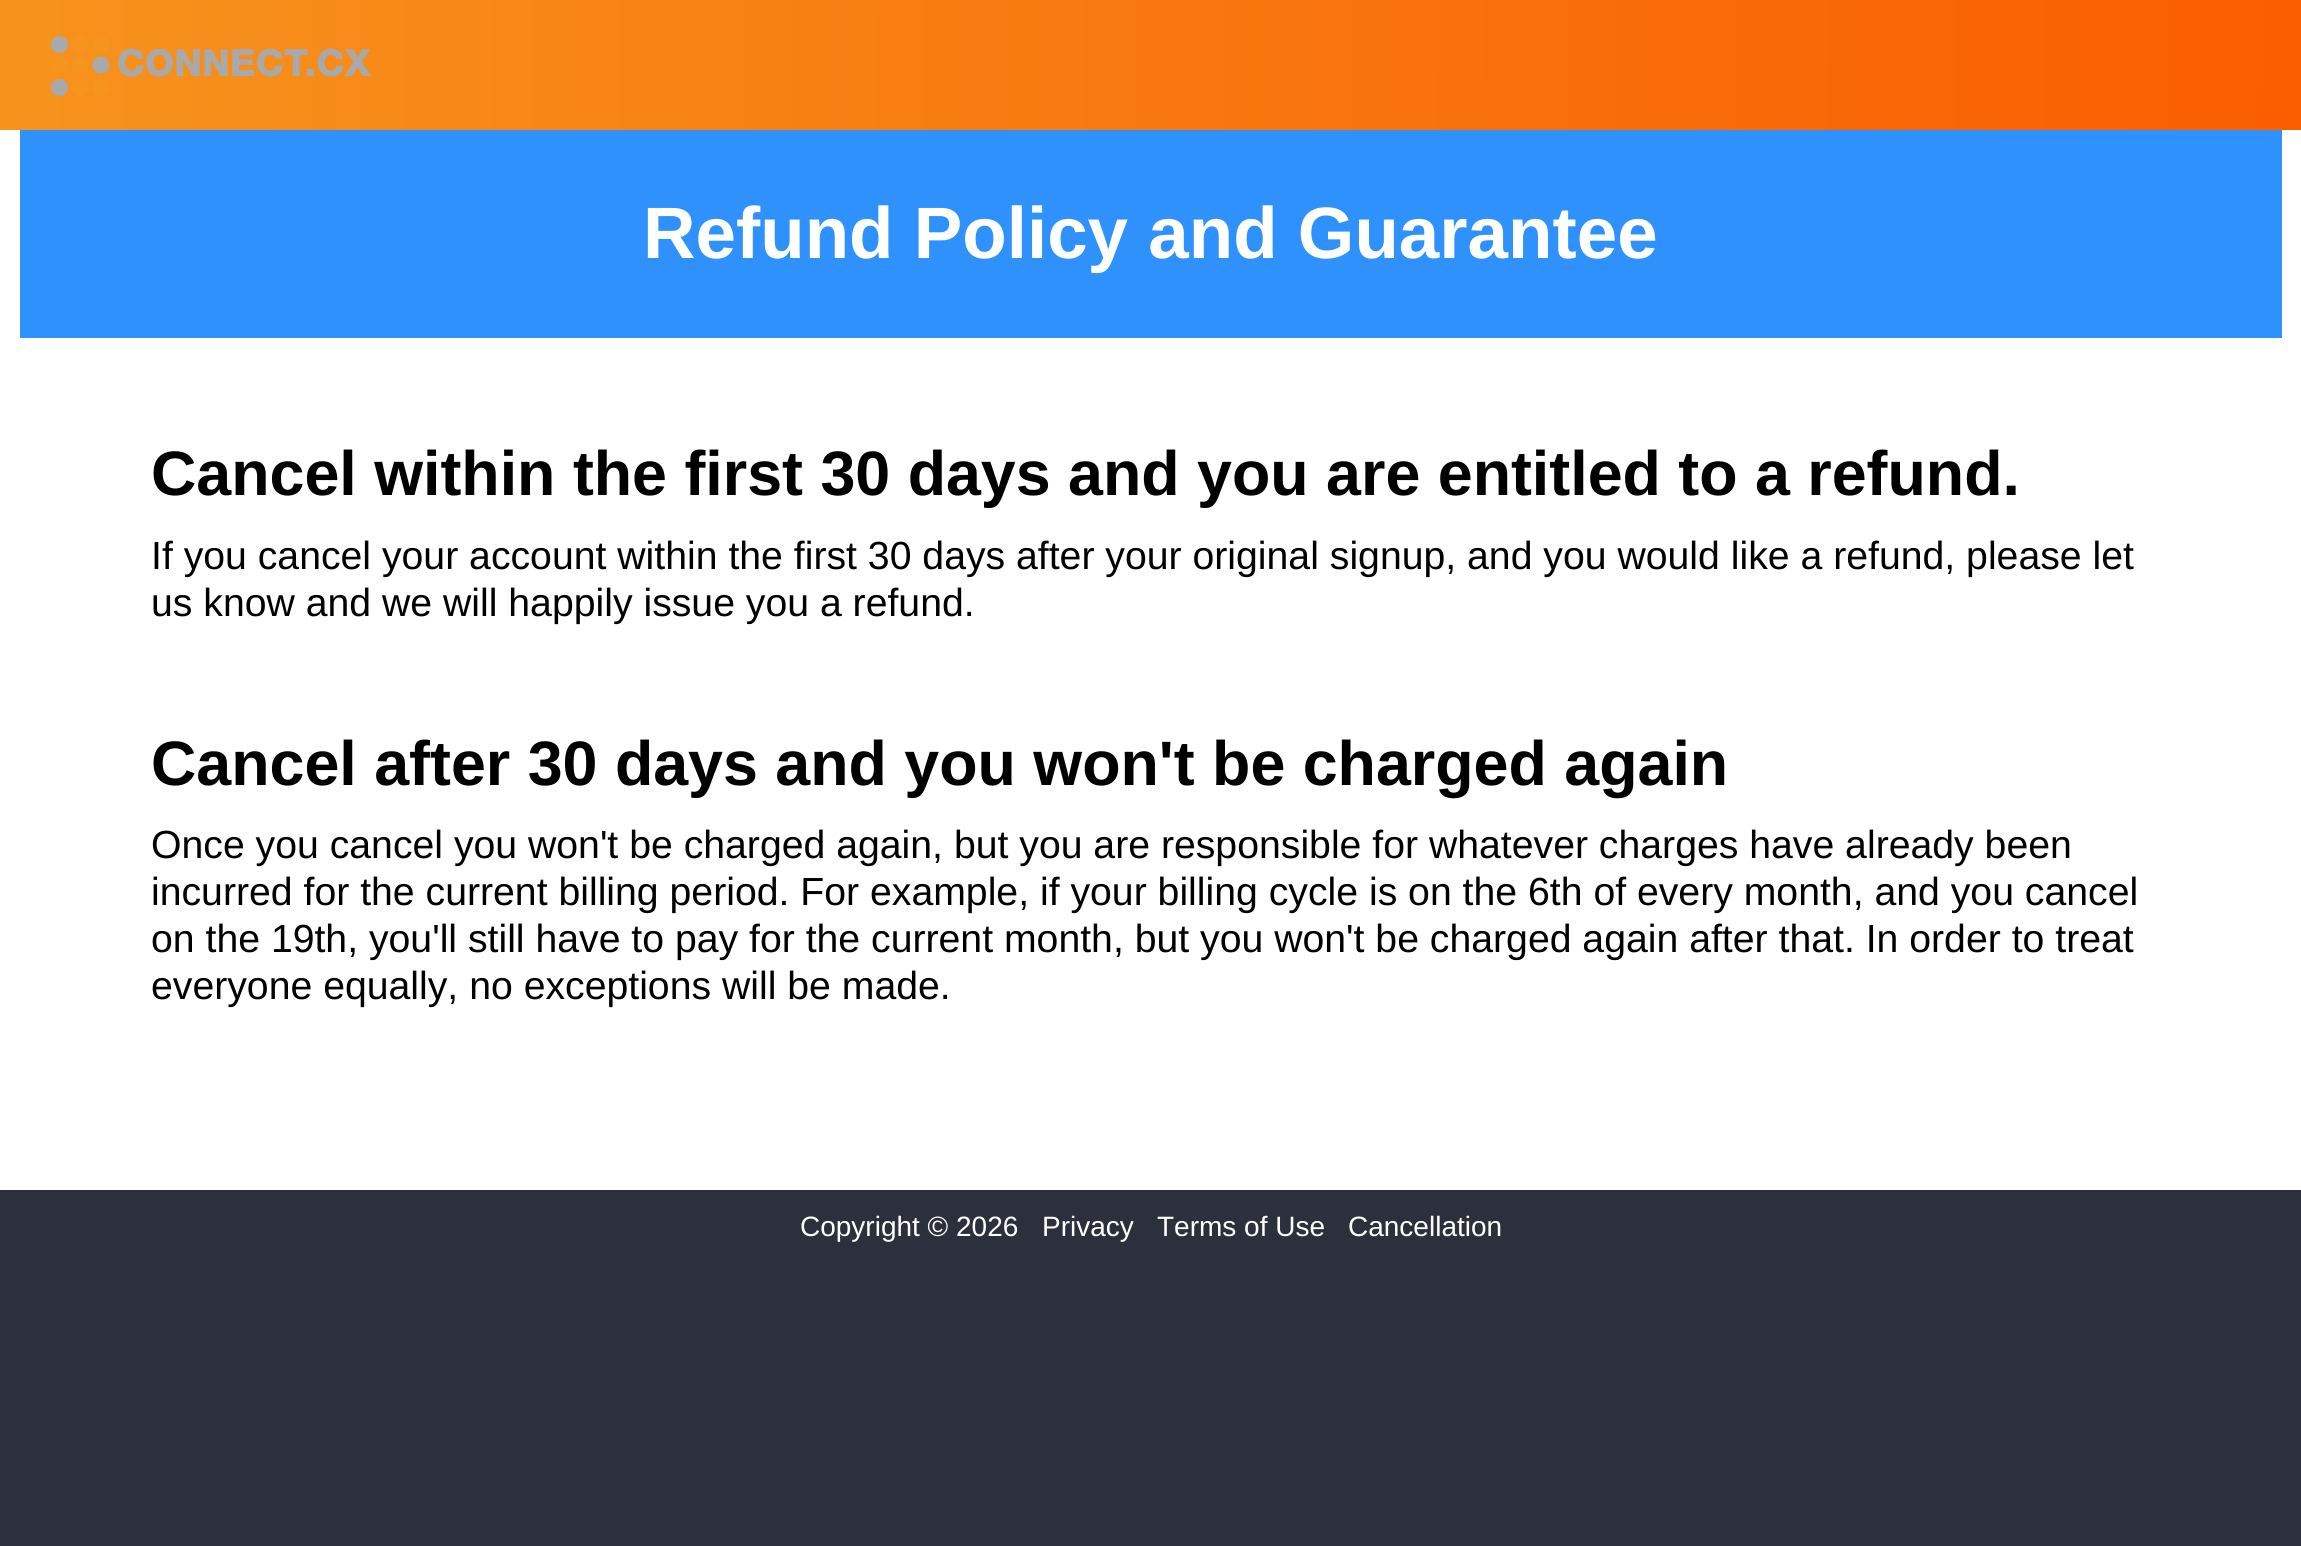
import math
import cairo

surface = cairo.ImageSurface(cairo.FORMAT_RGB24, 2301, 1546)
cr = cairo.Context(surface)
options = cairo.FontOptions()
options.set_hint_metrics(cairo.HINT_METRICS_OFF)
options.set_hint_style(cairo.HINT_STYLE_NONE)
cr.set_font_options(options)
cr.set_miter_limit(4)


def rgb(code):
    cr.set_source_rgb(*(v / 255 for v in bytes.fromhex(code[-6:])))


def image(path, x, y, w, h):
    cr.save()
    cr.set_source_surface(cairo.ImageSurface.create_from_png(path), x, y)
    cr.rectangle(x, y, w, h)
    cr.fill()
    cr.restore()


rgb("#2c303d")
cr.paint()
rgb("#ffffff")
cr.rectangle(0, 130, 2301, 1060)
cr.fill()
gradient = cairo.LinearGradient(-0.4, 57, 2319, 73)
gradient.add_color_stop_rgba(0, 0.969, 0.576, 0.114, 1)
gradient.add_color_stop_rgba(1, 0.98, 0.365, 0, 1)
cr.set_source(gradient)
cr.rectangle(0, 0, 2301, 130)
cr.fill()
image("img/1.png", 51, 36, 321, 60)
rgb("#2e91fc")
cr.rectangle(20, 130, 2262, 208)
cr.fill()
cr.select_font_face("Liberation Sans", cairo.FONT_SLANT_NORMAL, cairo.FONT_WEIGHT_BOLD)
cr.set_font_size(72.75)
rgb("#ffffff")
cr.move_to(643, 258)
cr.show_text("Refund Policy and Guarantee")
cr.set_font_size(62.75)
rgb("#000000")
cr.move_to(151, 495)
cr.show_text("Cancel within the first 30 days and you are entitled to a refund.")
cr.select_font_face("Liberation Sans")
cr.set_font_size(39.2)
cr.move_to(151, 569)
cr.show_text("If you cancel your account within the first 30 days after your original signup, and you would like a refund, please let")
cr.move_to(151, 616)
cr.show_text("us know and we will happily issue you a refund.")
cr.select_font_face("Liberation Sans", cairo.FONT_SLANT_NORMAL, cairo.FONT_WEIGHT_BOLD)
cr.set_font_size(62.75)
cr.move_to(151, 785)
cr.show_text("Cancel after 30 days and you won't be charged again")
cr.select_font_face("Liberation Sans")
cr.set_font_size(39.2)
for x, y, s in [
    (151, 858, "Once you cancel you won't be charged again, but you are responsible for whatever charges have already been"),
    (151, 905, "incurred for the current billing period. For example, if your billing cycle is on the 6th of every month, and you cancel"),
    (151, 952, "on the 19th, you'll still have to pay for the current month, but you won't be charged again after that. In order to treat"),
    (151, 999, "everyone equally, no exceptions will be made."),
]:
    cr.move_to(x, y)
    cr.show_text(s)
cr.set_font_size(28)
rgb("#ffffff")
for x, y, s in [
    (800, 1236, "Copyright © 2026"),
    (1042, 1236, "Privacy"),
    (1157, 1236, "Terms of Use"),
    (1348, 1236, "Cancellation"),
]:
    cr.move_to(x, y)
    cr.show_text(s)
surface.write_to_png("page.png")
